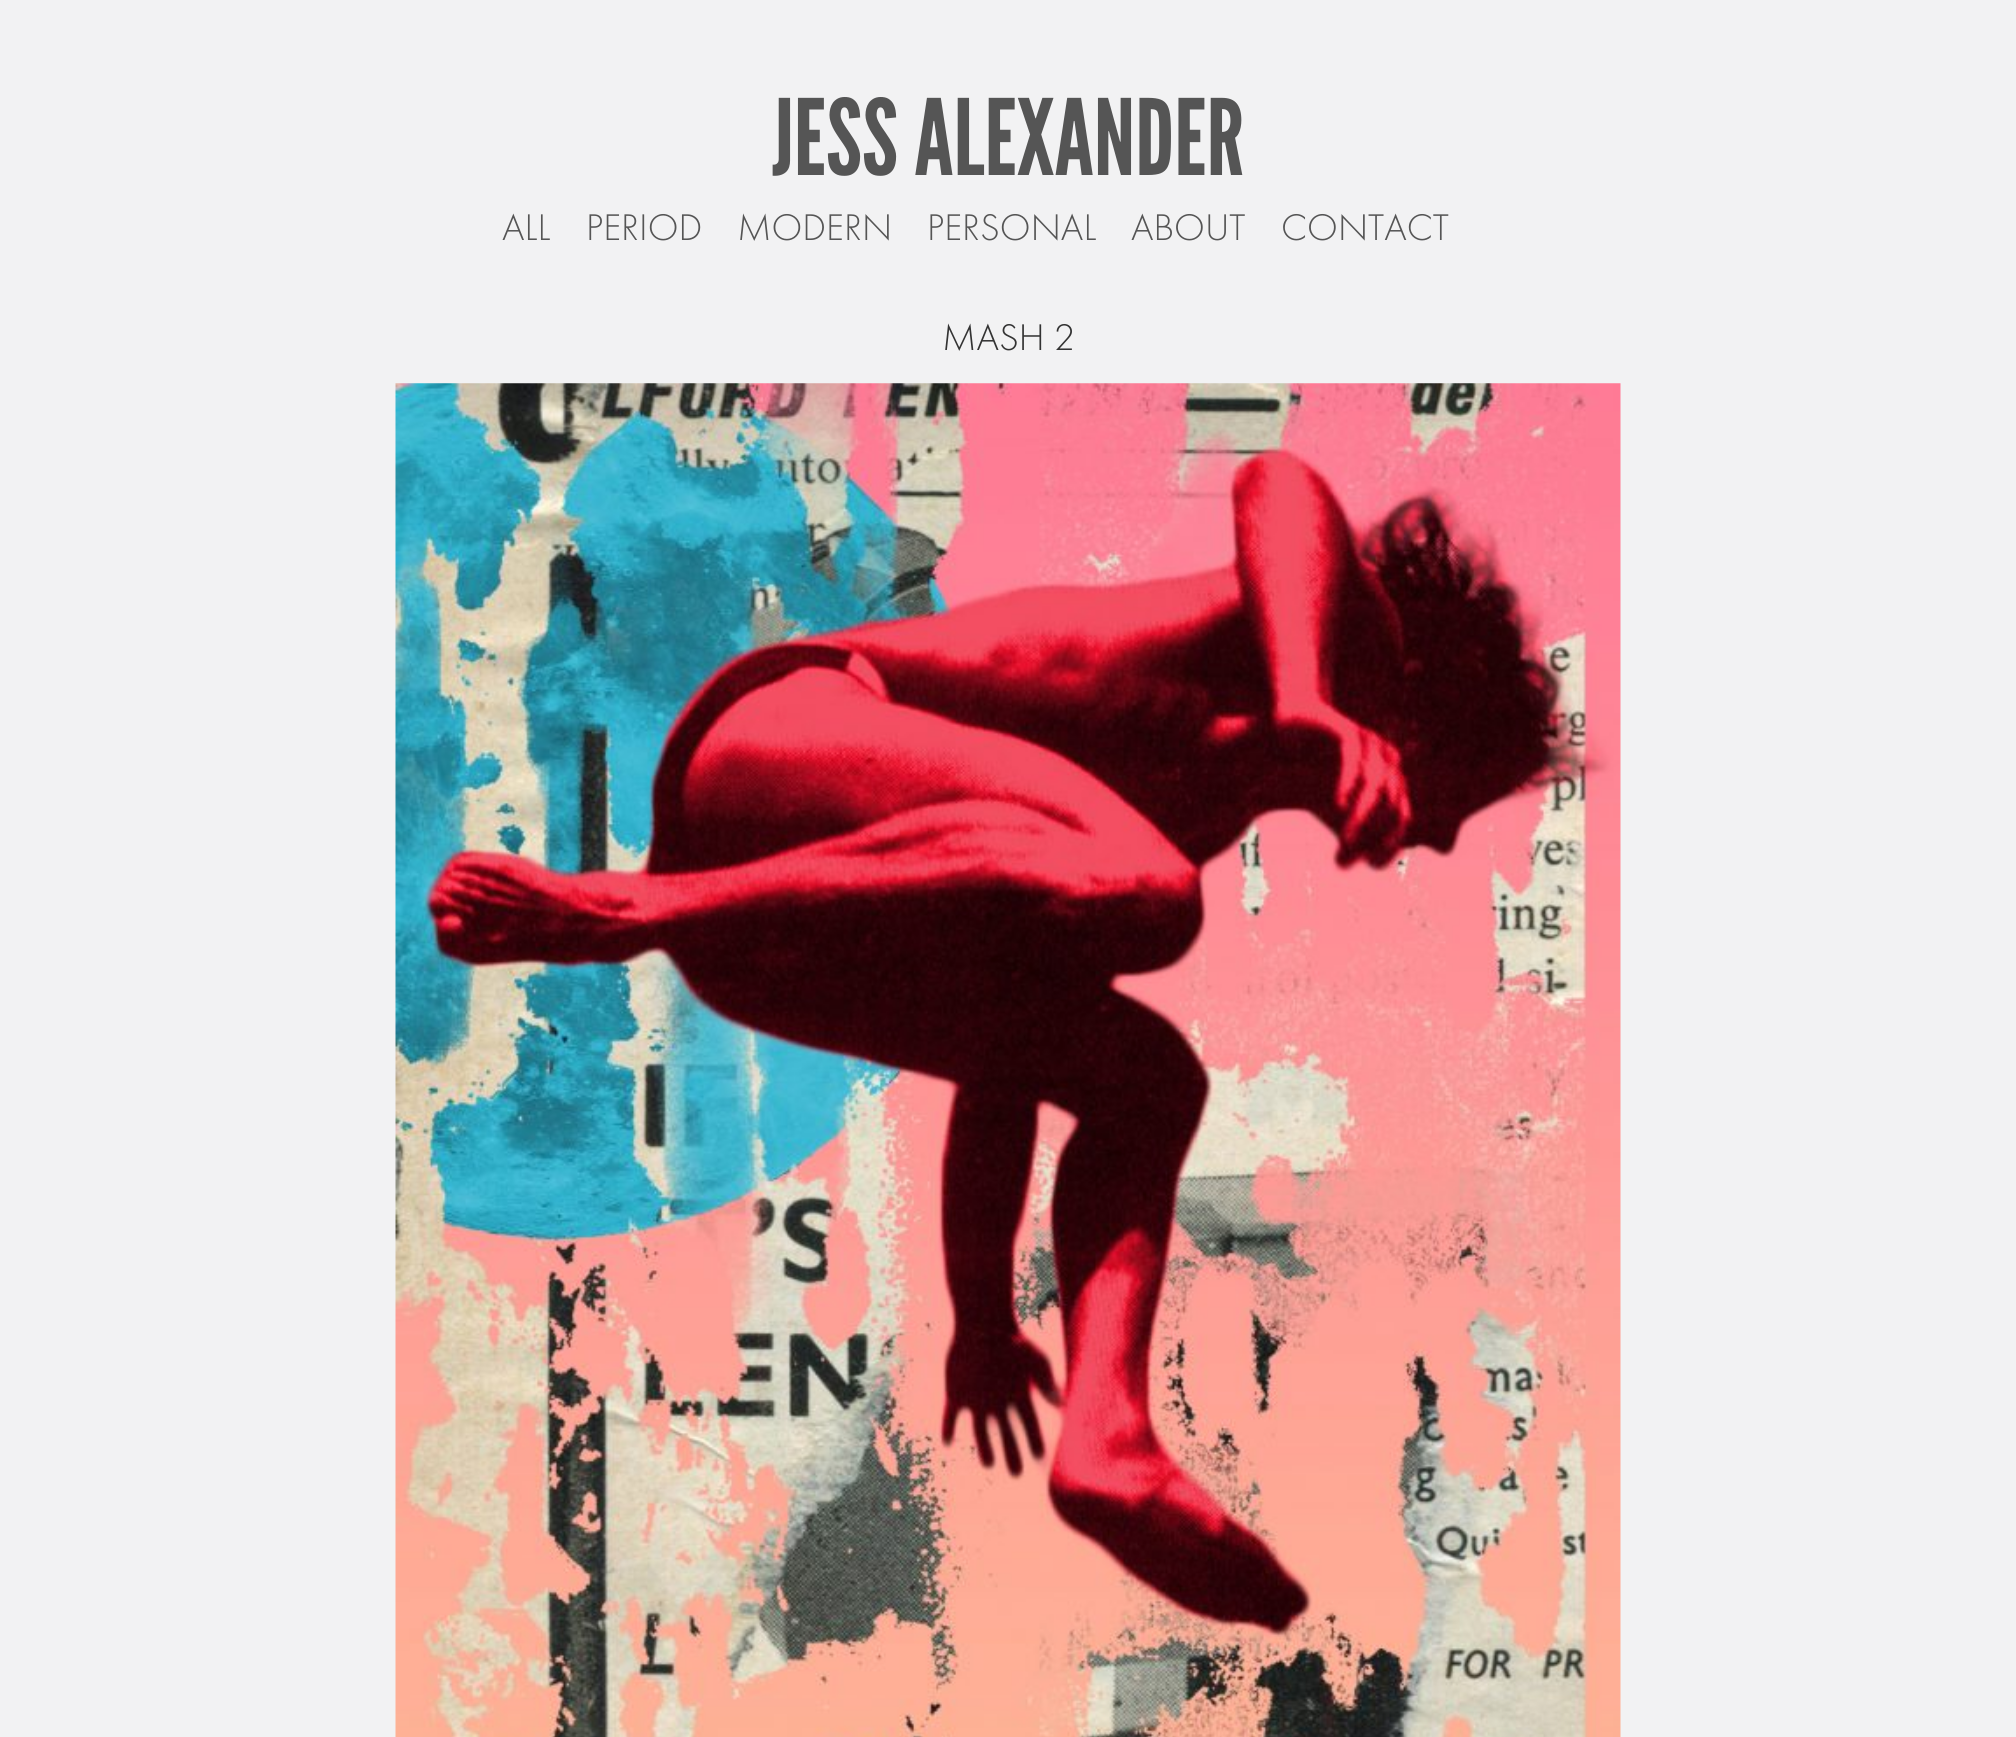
import math
import cairo

surface = cairo.ImageSurface(cairo.FORMAT_RGB24, 2016, 1737)
cr = cairo.Context(surface)
options = cairo.FontOptions()
options.set_hint_metrics(cairo.HINT_METRICS_OFF)
options.set_hint_style(cairo.HINT_STYLE_NONE)
cr.set_font_options(options)
cr.set_miter_limit(4)


def rgb(code):
    cr.set_source_rgb(*(v / 255 for v in bytes.fromhex(code[-6:])))


def image(path, x, y, w, h):
    cr.save()
    cr.set_source_surface(cairo.ImageSurface.create_from_png(path), x, y)
    cr.rectangle(x, y, w, h)
    cr.fill()
    cr.restore()


rgb("#f2f2f3")
cr.paint()
image("img/1.png", 395, 383, 1226, 1354)
cr.select_font_face("League Gothic")
cr.set_font_size(105)
rgb("#555555")
cr.move_to(772, 175)
cr.show_text("JESS ALEXANDER")
cr.select_font_face("Futura PT Light")
cr.set_font_size(38.5)
for x, y, s in [
    (502, 240, "ALL"),
    (586, 240, "PERIOD"),
    (737, 240, "MODERN"),
    (927, 240, "PERSONAL"),
    (1131, 240, "ABOUT"),
    (1281, 240, "CONTACT"),
]:
    cr.move_to(x, y)
    cr.show_text(s)
rgb("#333333")
cr.move_to(942, 350)
cr.show_text("MASH 2")
surface.write_to_png("page.png")
